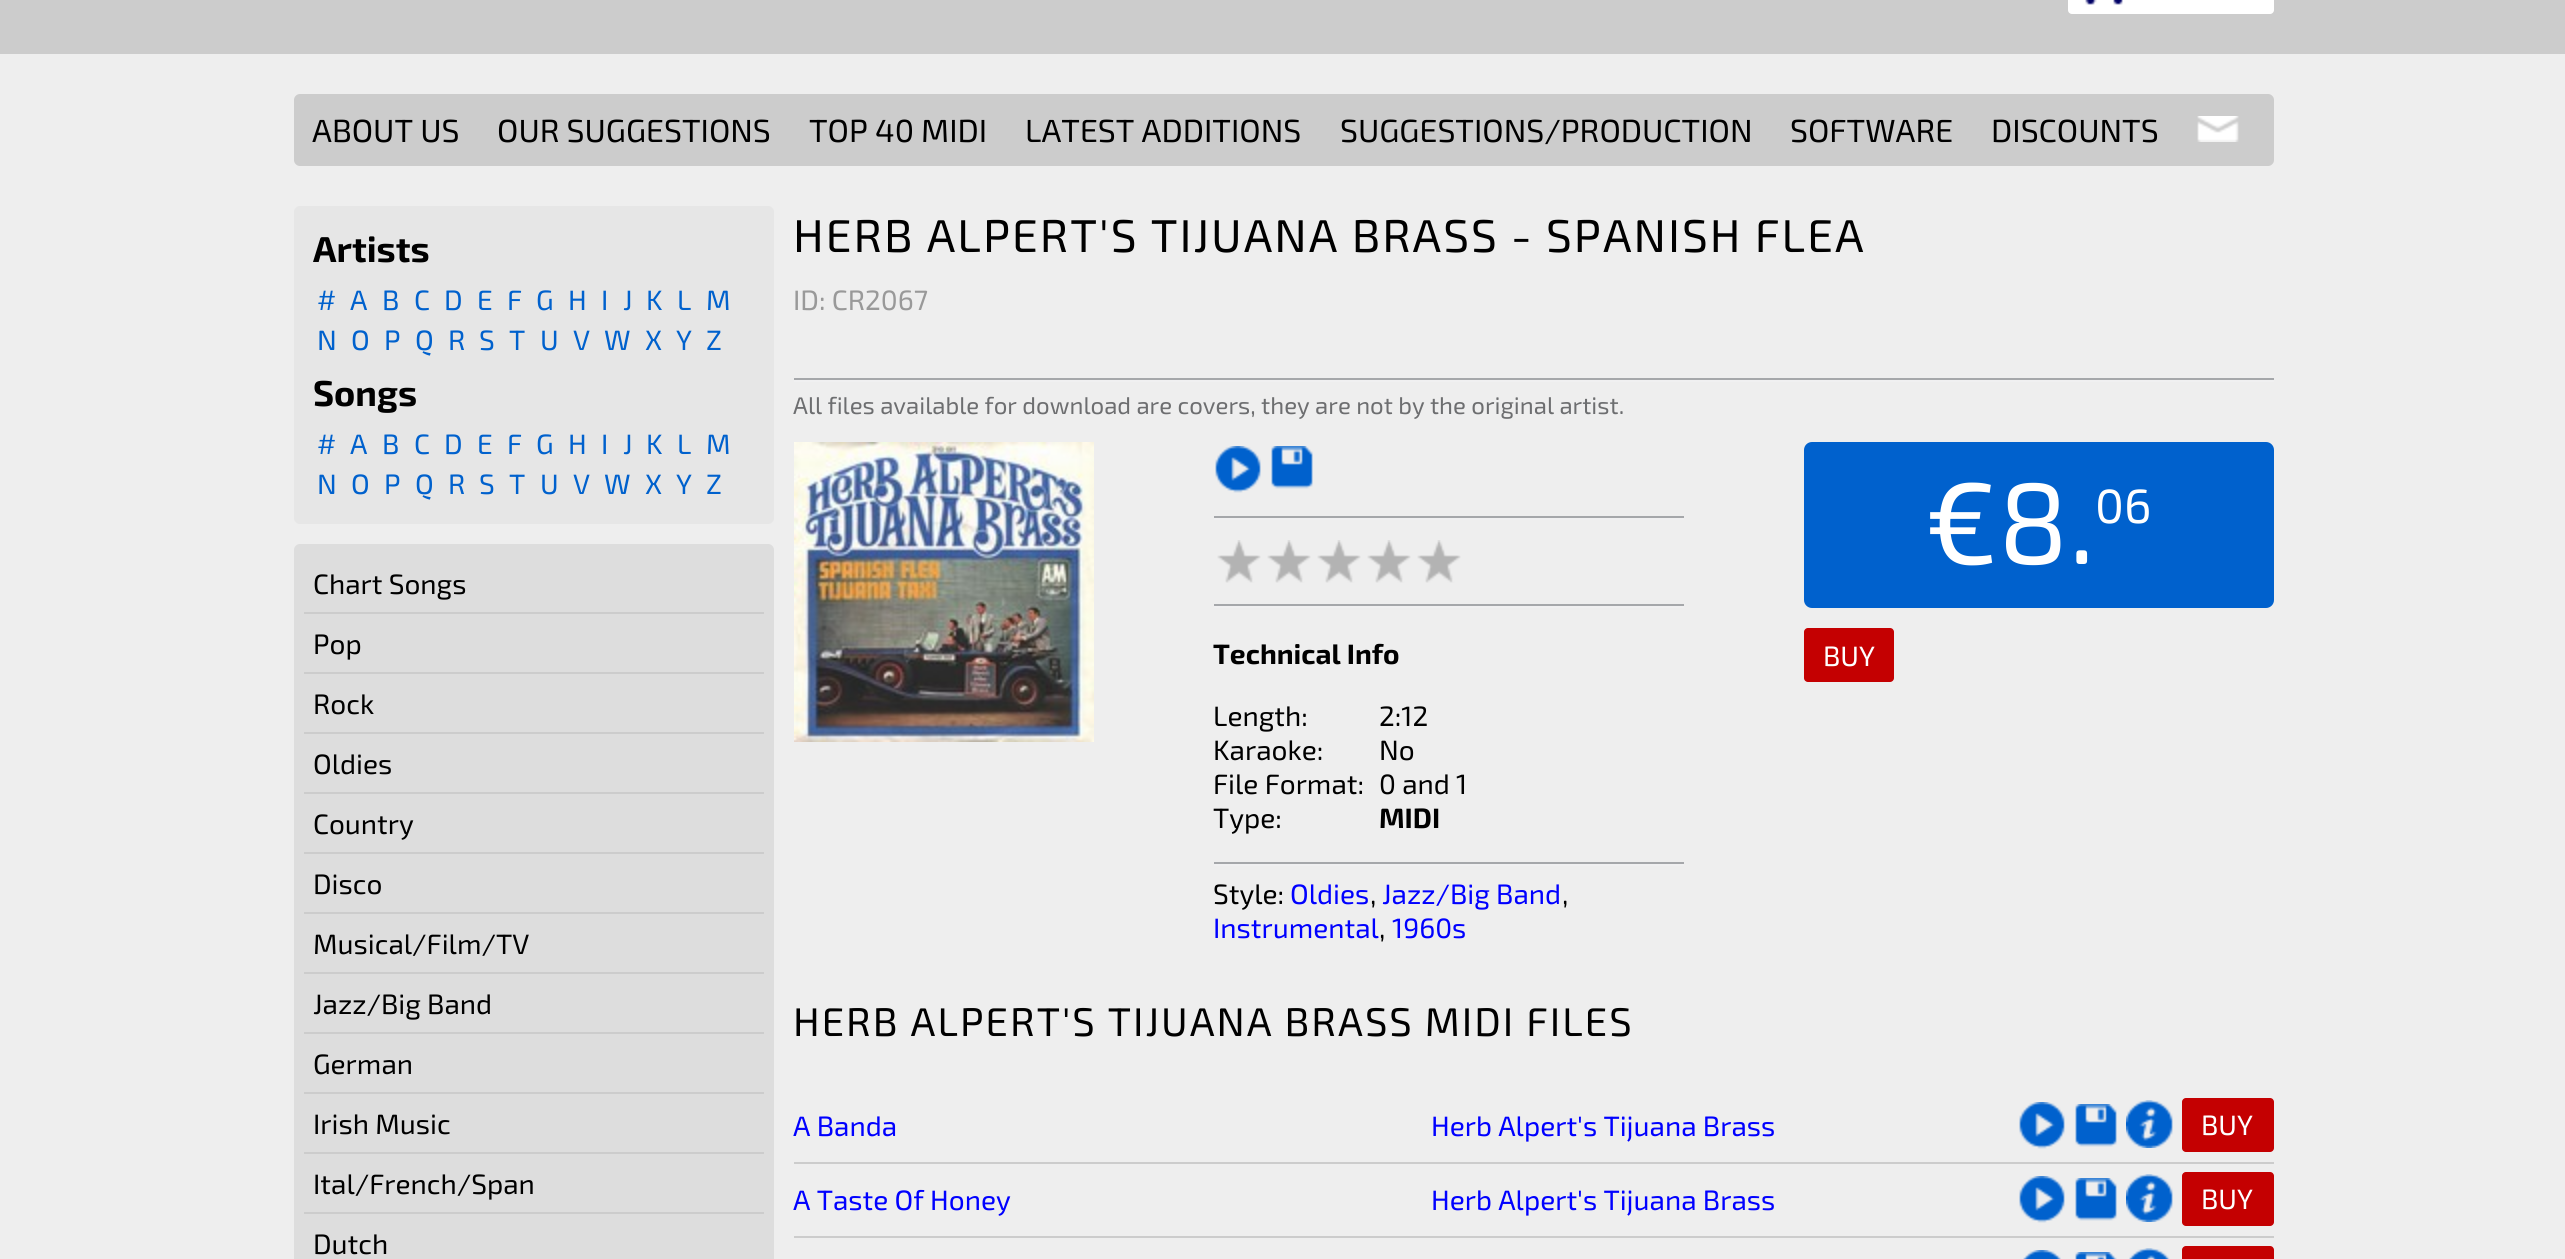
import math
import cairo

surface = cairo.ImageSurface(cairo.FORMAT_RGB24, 2565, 1259)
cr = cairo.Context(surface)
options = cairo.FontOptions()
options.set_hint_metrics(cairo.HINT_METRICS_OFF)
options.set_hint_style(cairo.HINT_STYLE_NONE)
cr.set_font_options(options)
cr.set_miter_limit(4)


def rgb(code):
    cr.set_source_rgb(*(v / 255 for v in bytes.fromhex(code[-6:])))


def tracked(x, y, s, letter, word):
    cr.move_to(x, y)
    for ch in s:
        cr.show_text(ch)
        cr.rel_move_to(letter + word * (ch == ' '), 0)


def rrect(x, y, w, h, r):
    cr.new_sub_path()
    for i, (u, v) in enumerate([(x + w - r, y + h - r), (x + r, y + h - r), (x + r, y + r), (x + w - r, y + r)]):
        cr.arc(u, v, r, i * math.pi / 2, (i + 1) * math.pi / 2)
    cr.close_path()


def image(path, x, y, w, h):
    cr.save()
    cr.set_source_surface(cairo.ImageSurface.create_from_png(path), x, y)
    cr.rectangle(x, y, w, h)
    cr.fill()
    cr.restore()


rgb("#eeeeee")
cr.paint()
rgb("#cccccc")
cr.rectangle(0, 0, 2565, 54)
cr.fill()
rgb("#ffffff")
rrect(2068, -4, 206, 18, 4)
cr.fill()
image("img/1.png", 2085, 0, 38, 5)
rgb("#cccccc")
rrect(294, 94, 1980, 72, 6)
cr.fill()
image("img/2.png", 2197, 116, 42, 26)
rgb("#e6e6e6")
rrect(294, 206, 480, 318, 6)
cr.fill()
rgb("#dddddd")
rrect(294, 544, 480, 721, 6)
cr.fill()
for x, y, w, h, color in [
    (304, 612, 460, 2, "#cccccc"),
    (304, 672, 460, 2, "#cccccc"),
    (304, 732, 460, 2, "#cccccc"),
    (304, 792, 460, 2, "#cccccc"),
    (304, 852, 460, 2, "#cccccc"),
    (304, 912, 460, 2, "#cccccc"),
    (304, 972, 460, 2, "#cccccc"),
    (304, 1032, 460, 2, "#cccccc"),
    (304, 1092, 460, 2, "#cccccc"),
    (304, 1152, 460, 2, "#cccccc"),
    (304, 1212, 460, 2, "#cccccc"),
    (794, 378, 1480, 2, "#a5a7aa"),
    (794, 380, 1480, 2, "#f0f0f1"),
]:
    rgb(color)
    cr.rectangle(x, y, w, h)
    cr.fill()
image("img/3.png", 794, 442, 300, 300)
rgb("#0061cd")
rrect(1804, 442, 470, 166, 8)
cr.fill()
rgb("#c40001")
rrect(1804, 628, 90, 54, 4)
cr.fill()
image("img/4.png", 1215, 446, 46, 47)
image("img/5.png", 1271, 446, 42, 43)
rgb("#a5a7aa")
cr.rectangle(1214, 516, 470, 2)
cr.fill()
rgb("#f0f0f1")
cr.rectangle(1214, 518, 470, 2)
cr.fill()
image("img/6.png", 1217, 540, 44, 43)
image("img/6.png", 1267, 540, 44, 43)
image("img/6.png", 1317, 540, 44, 43)
image("img/6.png", 1367, 540, 44, 43)
image("img/6.png", 1417, 540, 44, 43)
for x, y, w, h, color in [
    (1214, 604, 470, 2, "#a5a7aa"),
    (1214, 606, 470, 2, "#f0f0f1"),
    (1214, 862, 470, 2, "#a5a7aa"),
    (1214, 864, 470, 2, "#f0f0f1"),
    (794, 1162, 1480, 2, "#cccccc"),
]:
    rgb(color)
    cr.rectangle(x, y, w, h)
    cr.fill()
image("img/4.png", 2019, 1102, 46, 47)
image("img/5.png", 2075, 1104, 42, 43)
image("img/7.png", 2126, 1100, 47, 48)
rgb("#c40001")
rrect(2182, 1098, 92, 54, 4)
cr.fill()
rgb("#cccccc")
cr.rectangle(794, 1236, 1480, 2)
cr.fill()
image("img/4.png", 2019, 1176, 46, 47)
image("img/5.png", 2075, 1178, 42, 43)
image("img/7.png", 2126, 1174, 47, 48)
rgb("#c40001")
rrect(2182, 1172, 92, 54, 4)
cr.fill()
image("img/8.png", 2023, 1250, 38, 9)
image("img/9.png", 2075, 1252, 42, 7)
image("img/10.png", 2129, 1248, 41, 11)
rrect(2182, 1246, 92, 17, 4)
cr.fill()
cr.select_font_face("Exo 2")
cr.set_font_size(32)
rgb("#000000")
for x, y, s in [
    (312, 142, "ABOUT US"),
    (497, 142, "OUR SUGGESTIONS"),
    (809, 142, "TOP 40 MIDI"),
    (1025, 142, "LATEST ADDITIONS"),
    (1340, 142, "SUGGESTIONS/PRODUCTION"),
    (1790, 142, "SOFTWARE"),
    (1991, 142, "DISCOUNTS"),
]:
    cr.move_to(x, y)
    cr.show_text(s)
cr.select_font_face("Exo 2", cairo.FONT_SLANT_NORMAL, cairo.FONT_WEIGHT_BOLD)
cr.set_font_size(36)
cr.move_to(313, 262)
cr.show_text("Artists")
cr.select_font_face("Exo 2")
cr.set_font_size(28)
rgb("#0061cd")
for x, y, s in [
    (317, 310, "#"),
    (350, 310, "A"),
    (382, 310, "B"),
    (414, 310, "C"),
    (444, 310, "D"),
    (477, 310, "E"),
    (507, 310, "F"),
    (536, 310, "G"),
    (568, 310, "H"),
    (601, 310, "I"),
    (623, 310, "J"),
    (646, 310, "K"),
    (677, 310, "L"),
    (706, 310, "M"),
    (317, 350, "N"),
    (351, 350, "O"),
    (384, 350, "P"),
    (415, 350, "Q"),
    (448, 350, "R"),
    (479, 350, "S"),
    (509, 350, "T"),
    (540, 350, "U"),
    (573, 350, "V"),
    (604, 350, "W"),
    (645, 350, "X"),
    (676, 350, "Y"),
    (706, 350, "Z"),
]:
    cr.move_to(x, y)
    cr.show_text(s)
cr.select_font_face("Exo 2", cairo.FONT_SLANT_NORMAL, cairo.FONT_WEIGHT_BOLD)
cr.set_font_size(36)
rgb("#000000")
cr.move_to(313, 406)
cr.show_text("Songs")
cr.select_font_face("Exo 2")
cr.set_font_size(28)
rgb("#0061cd")
for x, y, s in [
    (317, 454, "#"),
    (350, 454, "A"),
    (382, 454, "B"),
    (414, 454, "C"),
    (444, 454, "D"),
    (477, 454, "E"),
    (507, 454, "F"),
    (536, 454, "G"),
    (568, 454, "H"),
    (601, 454, "I"),
    (623, 454, "J"),
    (646, 454, "K"),
    (677, 454, "L"),
    (706, 454, "M"),
    (317, 494, "N"),
    (351, 494, "O"),
    (384, 494, "P"),
    (415, 494, "Q"),
    (448, 494, "R"),
    (479, 494, "S"),
    (509, 494, "T"),
    (540, 494, "U"),
    (573, 494, "V"),
    (604, 494, "W"),
    (645, 494, "X"),
    (676, 494, "Y"),
    (706, 494, "Z"),
]:
    cr.move_to(x, y)
    cr.show_text(s)
rgb("#000000")
for x, y, s in [
    (313, 594, "Chart Songs"),
    (313, 654, "Pop"),
    (313, 714, "Rock"),
    (313, 774, "Oldies"),
    (313, 834, "Country"),
    (313, 894, "Disco"),
    (313, 954, "Musical/Film/TV"),
    (313, 1014, "Jazz/Big Band"),
    (313, 1074, "German"),
    (313, 1134, "Irish Music"),
    (313, 1194, "Ital/French/Span"),
    (313, 1254, "Dutch"),
]:
    cr.move_to(x, y)
    cr.show_text(s)
cr.set_font_size(46)
tracked(793, 252, "HERB ALPERT'S TIJUANA BRASS - SPANISH FLEA", 2, 0)
cr.set_font_size(28)
rgb("#999999")
cr.move_to(793, 310)
cr.show_text("ID: CR2067")
cr.set_font_size(24)
rgb("#6d6e70")
cr.move_to(793, 414)
cr.show_text("All files available for download are covers, they are not by the original artist.")
cr.set_font_size(116)
rgb("#ffffff")
cr.move_to(1924, 564)
cr.show_text("€8.")
cr.set_font_size(48)
cr.move_to(2095, 523)
cr.show_text("06")
cr.set_font_size(28)
cr.move_to(1823, 666)
cr.show_text("BUY")
cr.select_font_face("Exo 2", cairo.FONT_SLANT_NORMAL, cairo.FONT_WEIGHT_BOLD)
rgb("#000000")
cr.move_to(1213, 664)
cr.show_text("Technical Info")
cr.select_font_face("Exo 2")
for x, y, s in [
    (1213, 726, "Length:"),
    (1379, 726, "2:12"),
    (1213, 760, "Karaoke:"),
    (1379, 760, "No"),
    (1213, 794, "File Format:"),
    (1379, 794, "0 and 1"),
    (1213, 828, "Type:"),
]:
    cr.move_to(x, y)
    cr.show_text(s)
cr.select_font_face("Exo 2", cairo.FONT_SLANT_NORMAL, cairo.FONT_WEIGHT_BOLD)
cr.move_to(1379, 828)
cr.show_text("MIDI")
cr.select_font_face("Exo 2")
cr.move_to(1213, 904)
cr.show_text("Style:")
rgb("#0000ff")
cr.move_to(1290, 904)
cr.show_text("Oldies")
rgb("#000000")
cr.move_to(1370, 904)
cr.show_text(",")
rgb("#0000ff")
cr.move_to(1382, 904)
cr.show_text("Jazz/Big Band")
rgb("#000000")
cr.move_to(1562, 904)
cr.show_text(",")
rgb("#0000ff")
cr.move_to(1213, 938)
cr.show_text("Instrumental")
rgb("#000000")
cr.move_to(1379, 938)
cr.show_text(",")
rgb("#0000ff")
cr.move_to(1392, 938)
cr.show_text("1960s")
cr.set_font_size(40)
rgb("#000000")
tracked(793, 1036, "HERB ALPERT'S TIJUANA BRASS MIDI FILES", 2, 0)
cr.set_font_size(28)
rgb("#0000ff")
cr.move_to(793, 1136)
cr.show_text("A Banda")
cr.move_to(1431, 1136)
cr.show_text("Herb Alpert's Tijuana Brass")
rgb("#ffffff")
cr.move_to(2201, 1135)
cr.show_text("BUY")
rgb("#0000ff")
cr.move_to(793, 1210)
cr.show_text("A Taste Of Honey")
cr.move_to(1431, 1210)
cr.show_text("Herb Alpert's Tijuana Brass")
rgb("#ffffff")
cr.move_to(2201, 1209)
cr.show_text("BUY")
surface.write_to_png("page.png")
